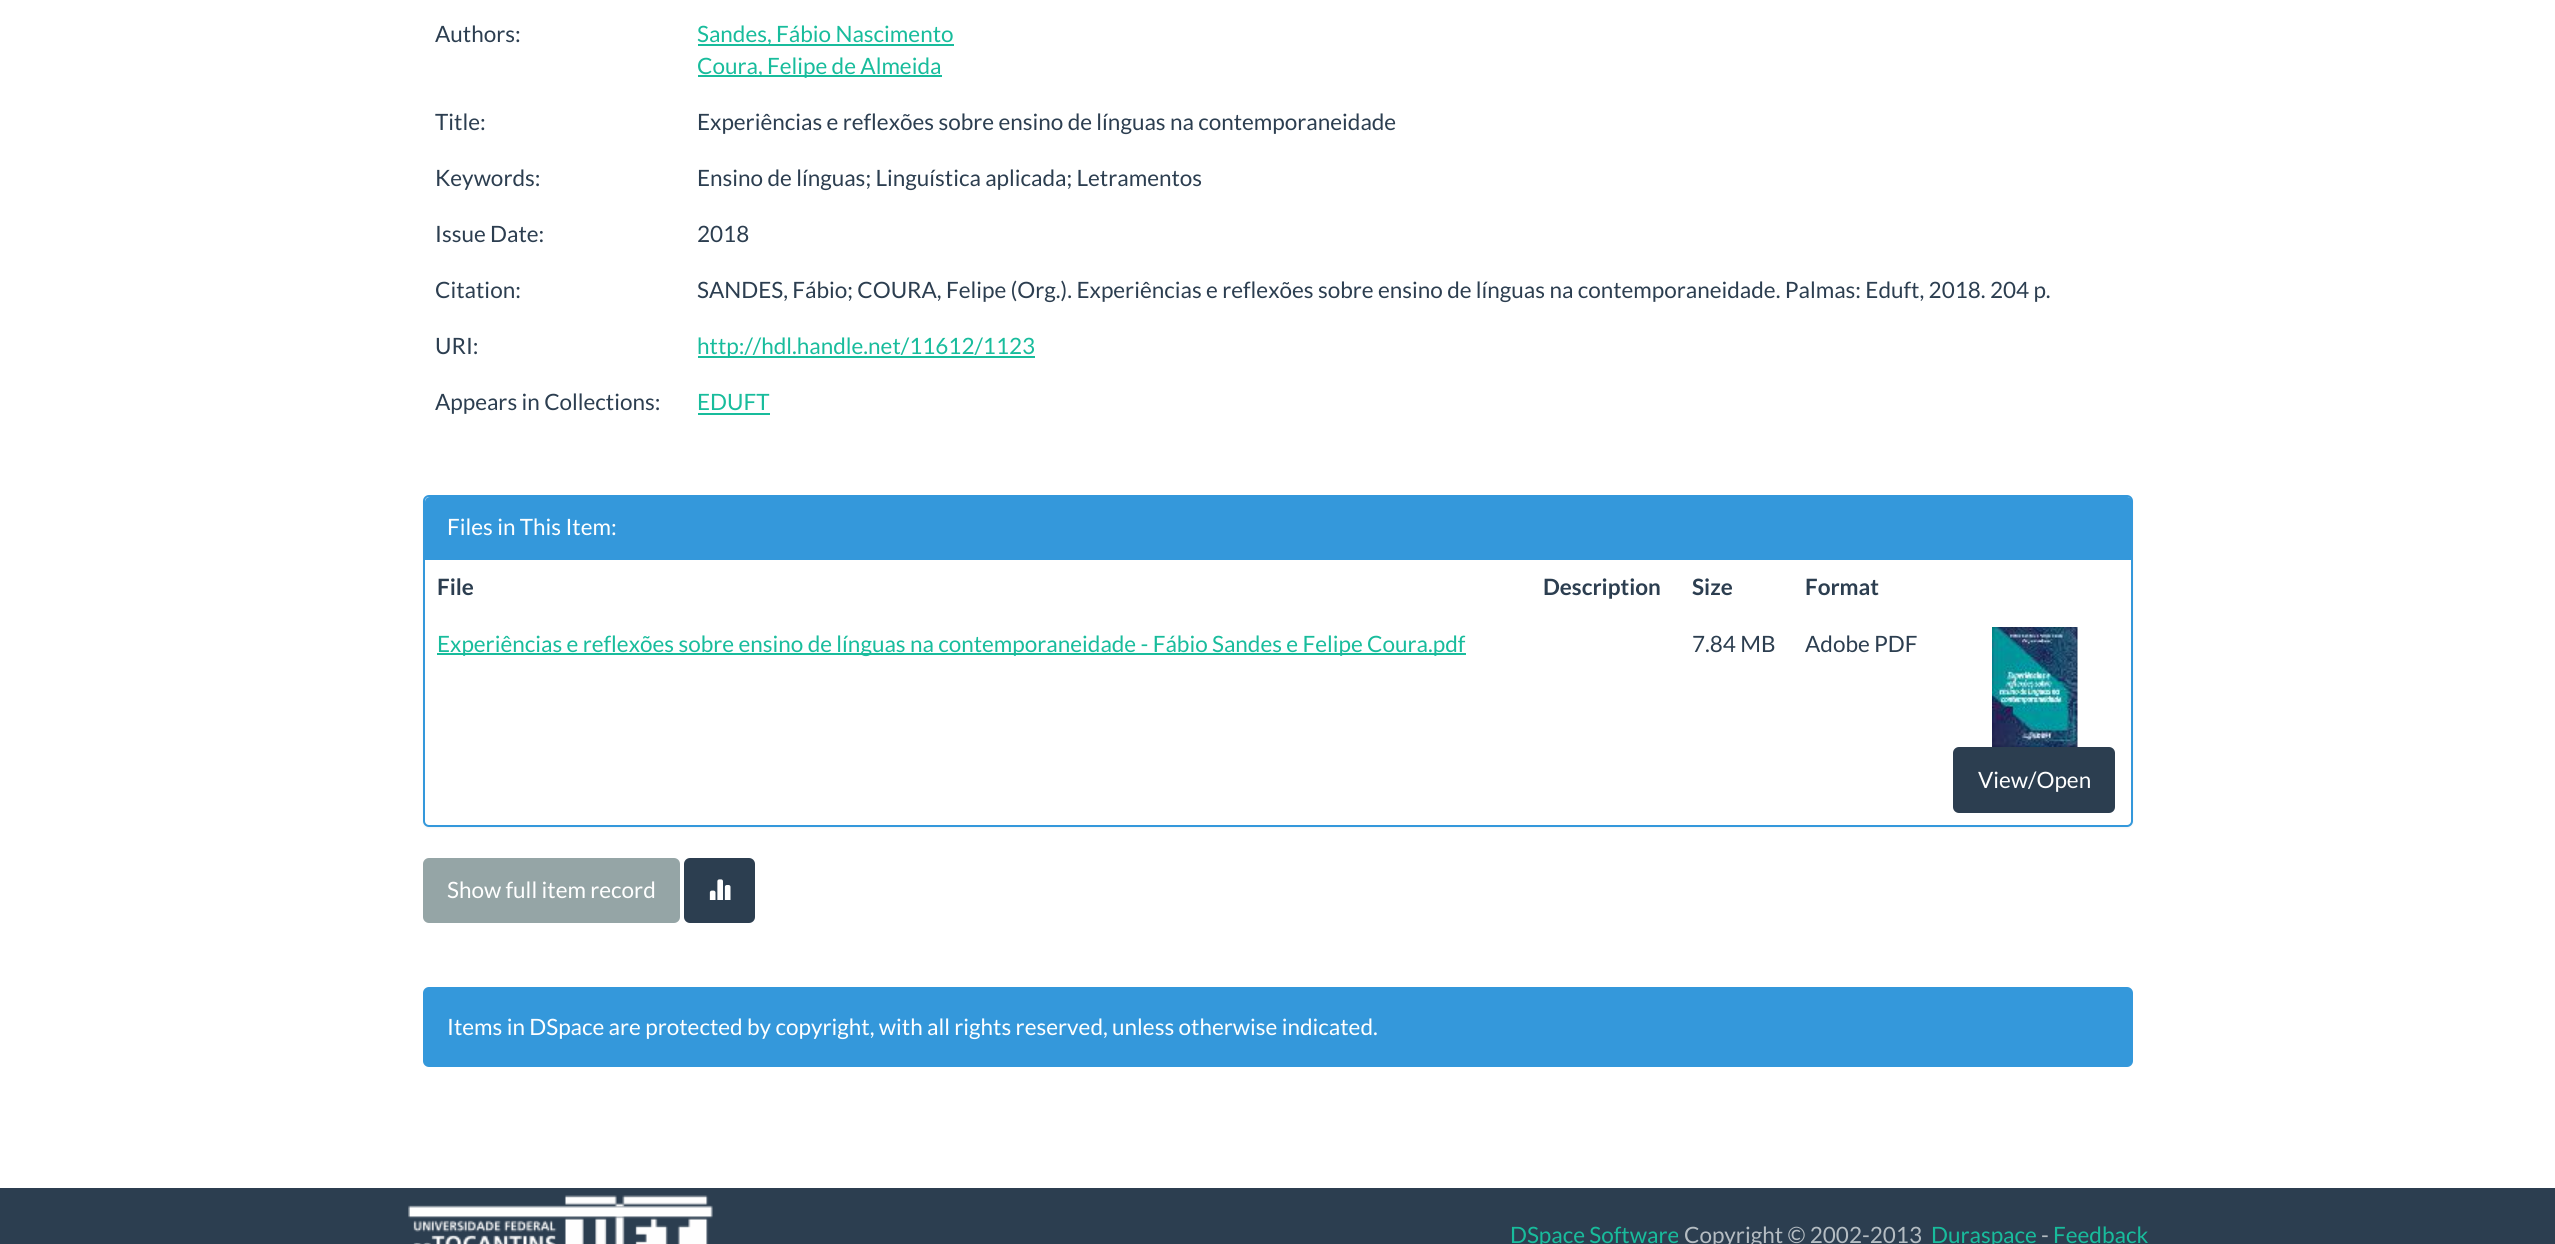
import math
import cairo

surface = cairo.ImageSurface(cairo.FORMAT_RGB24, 2555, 1244)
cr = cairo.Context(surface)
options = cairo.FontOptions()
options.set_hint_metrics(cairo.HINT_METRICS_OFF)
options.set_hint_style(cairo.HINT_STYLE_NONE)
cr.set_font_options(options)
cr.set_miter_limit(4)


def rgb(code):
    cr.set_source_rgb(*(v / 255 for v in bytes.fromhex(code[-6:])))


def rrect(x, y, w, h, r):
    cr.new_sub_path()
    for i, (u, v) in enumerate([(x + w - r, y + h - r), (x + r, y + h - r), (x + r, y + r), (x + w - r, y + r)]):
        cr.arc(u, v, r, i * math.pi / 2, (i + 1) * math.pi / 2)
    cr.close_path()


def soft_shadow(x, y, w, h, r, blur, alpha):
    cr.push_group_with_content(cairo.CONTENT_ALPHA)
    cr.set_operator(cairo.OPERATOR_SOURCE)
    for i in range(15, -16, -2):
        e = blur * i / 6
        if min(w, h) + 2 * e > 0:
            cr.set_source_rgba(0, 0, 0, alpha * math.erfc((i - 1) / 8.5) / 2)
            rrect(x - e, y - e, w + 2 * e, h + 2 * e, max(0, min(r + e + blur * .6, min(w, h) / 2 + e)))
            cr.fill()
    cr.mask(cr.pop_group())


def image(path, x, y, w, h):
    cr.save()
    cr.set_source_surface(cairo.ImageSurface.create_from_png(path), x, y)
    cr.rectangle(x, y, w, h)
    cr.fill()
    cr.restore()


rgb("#ffffff")
cr.paint()
for x, y, w, h, color in [
    (698, 44, 256, 2, "#18bc9c"),
    (698, 75, 244, 2, "#18bc9c"),
    (698, 356, 337, 2, "#18bc9c"),
    (698, 413, 72, 2, "#18bc9c"),
]:
    rgb(color)
    cr.rectangle(x, y, w, h)
    cr.fill()
rgb("#000000")
soft_shadow(423, 497, 1710, 331, 6, 1, 0.05)
rgb("#ffffff")
rrect(424, 496, 1708, 330, 5)
cr.fill_preserve()
rgb("#3498db")
cr.stroke()
cr.new_path()
cr.move_to(430, 497)
cr.line_to(2127, 497)
cr.curve_to(2130, 497, 2132, 499, 2132, 502)
cr.line_to(2132, 560)
cr.line_to(425, 560)
cr.line_to(425, 502)
cr.curve_to(425, 499, 427, 497, 430, 497)
cr.close_path()
cr.fill()
rgb("#18bc9c")
cr.rectangle(437, 653, 1029, 2)
cr.fill()
image("img/1.png", 1992, 627, 86, 120)
rgb("#2c3e50")
rrect(1954, 748, 160, 64, 5)
cr.fill_preserve()
cr.stroke()
rgb("#95a5a6")
rrect(424, 859, 255, 63, 5)
cr.fill_preserve()
cr.stroke()
rgb("#2c3e50")
rrect(685, 859, 69, 63, 5)
cr.fill_preserve()
cr.stroke()
image("img/2.png", 709, 879, 22, 21)
rgb("#3498db")
rrect(424, 988, 1708, 78, 5)
cr.fill_preserve()
cr.stroke()
rgb("#2c3e50")
cr.rectangle(0, 1188, 2555, 56)
cr.fill()
image("img/3.png", 408, 1195, 305, 49)
cr.select_font_face("Lato")
cr.set_font_size(22.5)
cr.move_to(435, 42)
cr.show_text("Authors:")
rgb("#18bc9c")
cr.move_to(697, 42)
cr.show_text("Sandes, Fábio Nascimento")
cr.move_to(697, 74)
cr.show_text("Coura, Felipe de Almeida")
rgb("#2c3e50")
for x, y, s in [
    (435, 130, "Title:"),
    (697, 130, "Experiências e reflexões sobre ensino de línguas na contemporaneidade"),
    (435, 186, "Keywords:"),
    (697, 186, "Ensino de línguas; Linguística aplicada; Letramentos"),
    (435, 242, "Issue Date:"),
    (697, 242, "2018"),
    (435, 298, "Citation:"),
    (697, 298, "SANDES, Fábio; COURA, Felipe (Org.). Experiências e reflexões sobre ensino de línguas na contemporaneidade. Palmas: Eduft, 2018. 204 p."),
    (435, 354, "URI:"),
]:
    cr.move_to(x, y)
    cr.show_text(s)
rgb("#18bc9c")
cr.move_to(697, 354)
cr.show_text("http://hdl.handle.net/11612/1123")
rgb("#2c3e50")
cr.move_to(435, 410)
cr.show_text("Appears in Collections:")
rgb("#18bc9c")
cr.move_to(697, 410)
cr.show_text("EDUFT")
rgb("#ffffff")
cr.move_to(447, 535)
cr.show_text("Files in This Item:")
cr.select_font_face("Lato", cairo.FONT_SLANT_NORMAL, cairo.FONT_WEIGHT_BOLD)
rgb("#2c3e50")
for x, y, s in [
    (437, 595, "File"),
    (1543, 595, "Description"),
    (1692, 595, "Size"),
    (1805, 595, "Format"),
]:
    cr.move_to(x, y)
    cr.show_text(s)
cr.select_font_face("Lato")
rgb("#18bc9c")
cr.move_to(437, 652)
cr.show_text("Experiências e reflexões sobre ensino de línguas na contemporaneidade - Fábio Sandes e Felipe Coura.pdf")
rgb("#2c3e50")
cr.move_to(1692, 652)
cr.show_text("7.84 MB")
cr.move_to(1805, 652)
cr.show_text("Adobe PDF")
rgb("#ffffff")
for x, y, s in [
    (1978, 788, "View/Open"),
    (447, 898, "Show full item record"),
    (447, 1035, "Items in DSpace are protected by copyright, with all rights reserved, unless otherwise indicated."),
]:
    cr.move_to(x, y)
    cr.show_text(s)
rgb("#18bc9c")
cr.move_to(1510, 1243)
cr.show_text("DSpace Software")
rgb("#b4bcc2")
cr.move_to(1684, 1243)
cr.show_text("Copyright © 2002-2013")
rgb("#18bc9c")
cr.move_to(1931, 1243)
cr.show_text("Duraspace")
rgb("#b4bcc2")
cr.move_to(2041, 1243)
cr.show_text("-")
rgb("#18bc9c")
cr.move_to(2053, 1243)
cr.show_text("Feedback")
surface.write_to_png("page.png")
